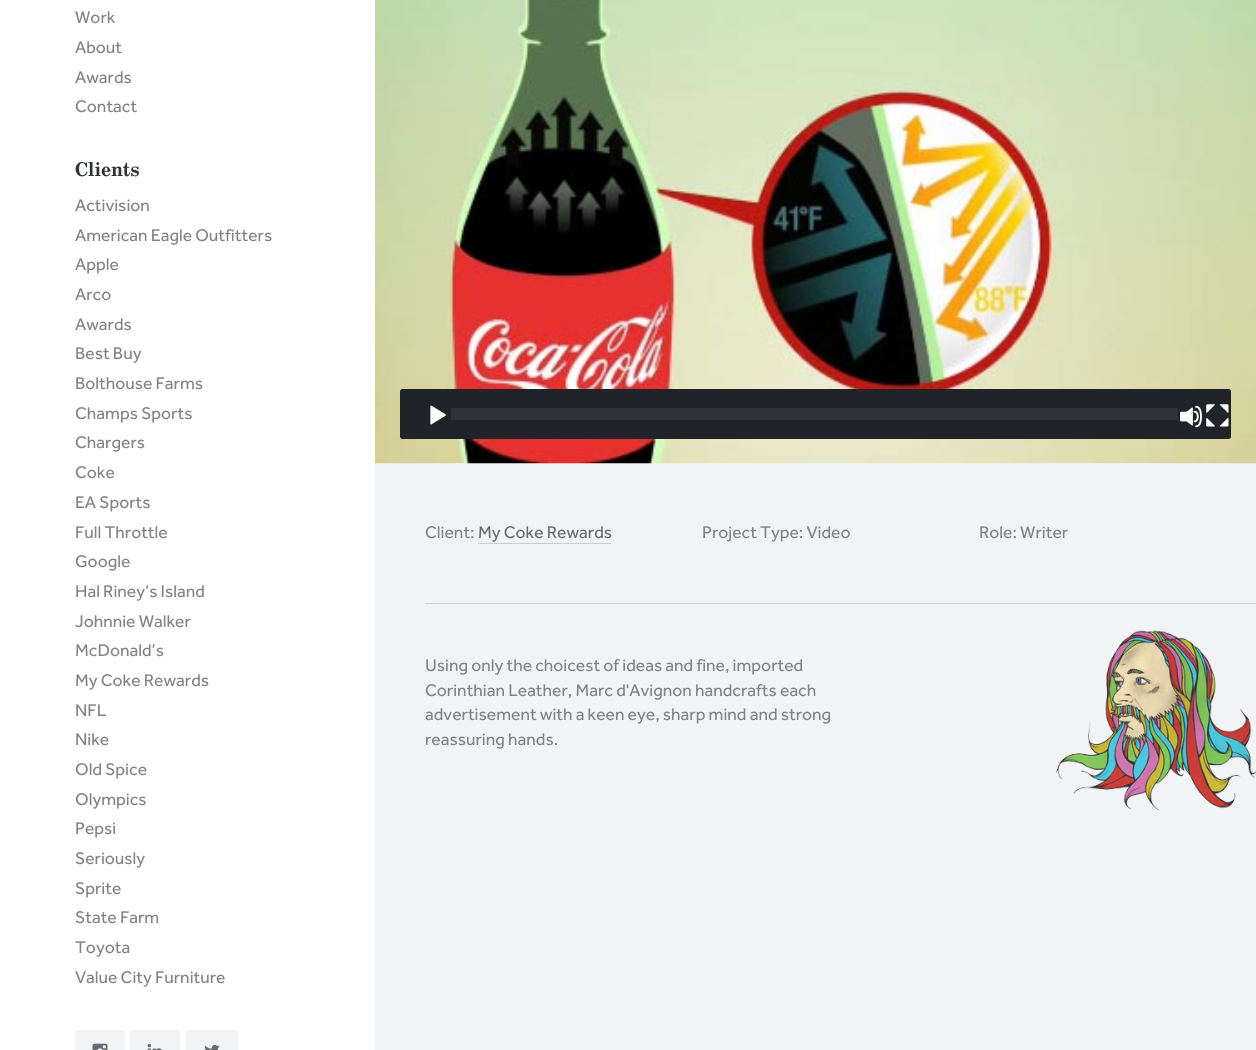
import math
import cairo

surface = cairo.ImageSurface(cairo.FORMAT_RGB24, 1256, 1050)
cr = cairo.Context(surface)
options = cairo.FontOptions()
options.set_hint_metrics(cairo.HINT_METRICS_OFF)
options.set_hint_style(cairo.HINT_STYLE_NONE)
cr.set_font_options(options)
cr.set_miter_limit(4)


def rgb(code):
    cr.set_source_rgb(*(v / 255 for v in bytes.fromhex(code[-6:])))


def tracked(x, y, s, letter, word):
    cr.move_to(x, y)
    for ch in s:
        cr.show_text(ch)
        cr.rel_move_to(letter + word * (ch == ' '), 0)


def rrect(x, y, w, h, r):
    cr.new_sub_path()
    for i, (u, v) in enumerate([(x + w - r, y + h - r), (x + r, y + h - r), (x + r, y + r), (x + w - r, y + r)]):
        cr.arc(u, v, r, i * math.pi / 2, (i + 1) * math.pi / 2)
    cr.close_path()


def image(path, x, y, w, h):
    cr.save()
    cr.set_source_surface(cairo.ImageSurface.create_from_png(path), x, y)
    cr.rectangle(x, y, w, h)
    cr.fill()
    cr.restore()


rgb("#ffffff")
cr.paint()
rgb("#f2f3f4")
cr.rectangle(375, 463, 881, 587)
cr.fill()
rrect(75, 1030, 50, 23, 2.5)
cr.fill()
image("img/1.png", 92, 1043, 16, 7)
rrect(130, 1030, 50, 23, 2.5)
cr.fill()
image("img/2.png", 147, 1044, 15, 6)
rrect(186, 1030, 52, 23, 2.5)
cr.fill()
image("img/3.png", 204, 1045, 16, 5)
image("img/4.png", 375, 0, 881, 464)
rgb("#202328")
rrect(400, 389, 831, 50, 2.5)
cr.fill()
image("img/5.png", 430, 405, 16, 20)
rgb("#303239")
cr.rectangle(451, 408, 727, 12)
cr.fill()
image("img/6.png", 1180, 405, 22, 23)
image("img/7.png", 1206, 404, 23, 23)
rgb("#cbcccf")
cr.rectangle(478, 543, 133, 1)
cr.fill()
image("img/8.png", 1056, 630, 200, 180)
rgb("#d4d5d9")
cr.rectangle(425, 603, 831, 1)
cr.fill()
cr.select_font_face("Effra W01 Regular")
cr.set_font_size(17.5)
rgb("#808286")
for x, y, s in [
    (75, 23, "Work"),
    (75, 53, "About"),
    (75, 83, "Awards"),
    (75, 112, "Contact"),
]:
    cr.move_to(x, y)
    cr.show_text(s)
cr.select_font_face("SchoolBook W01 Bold", cairo.FONT_SLANT_NORMAL, cairo.FONT_WEIGHT_BOLD)
cr.set_font_size(20)
rgb("#303239")
tracked(75, 176, "Clients", -0.25, 0)
cr.select_font_face("Effra W01 Regular")
cr.set_font_size(17.5)
rgb("#808286")
for x, y, s in [
    (75, 211, "Activision"),
    (75, 241, "American Eagle Outfitters"),
    (75, 270, "Apple"),
    (75, 300, "Arco"),
    (75, 330, "Awards"),
    (75, 359, "Best Buy"),
    (75, 389, "Bolthouse Farms"),
    (75, 419, "Champs Sports"),
    (75, 448, "Chargers"),
    (75, 478, "Coke"),
    (75, 508, "EA Sports"),
    (75, 538, "Full Throttle"),
    (75, 567, "Google"),
    (75, 597, "Hal Riney’s Island"),
    (75, 627, "Johnnie Walker"),
    (75, 656, "McDonald’s"),
    (75, 686, "My Coke Rewards"),
    (75, 716, "NFL"),
    (75, 745, "Nike"),
    (75, 775, "Old Spice"),
    (75, 805, "Olympics"),
    (75, 834, "Pepsi"),
    (75, 864, "Seriously"),
    (75, 894, "Sprite"),
    (75, 923, "State Farm"),
    (75, 953, "Toyota"),
    (75, 983, "Value City Furniture"),
    (425, 538, "Client:"),
]:
    cr.move_to(x, y)
    cr.show_text(s)
rgb("#666970")
cr.move_to(478, 538)
cr.show_text("My Coke Rewards")
rgb("#808286")
for x, y, s in [
    (702, 538, "Project Type: Video"),
    (979, 538, "Role: Writer"),
    (425, 671, "Using only the choicest of ideas and fine, imported"),
    (425, 696, "Corinthian Leather, Marc d'Avignon handcrafts each"),
    (425, 720, "advertisement with a keen eye, sharp mind and strong"),
    (425, 745, "reassuring hands."),
]:
    cr.move_to(x, y)
    cr.show_text(s)
surface.write_to_png("page.png")
